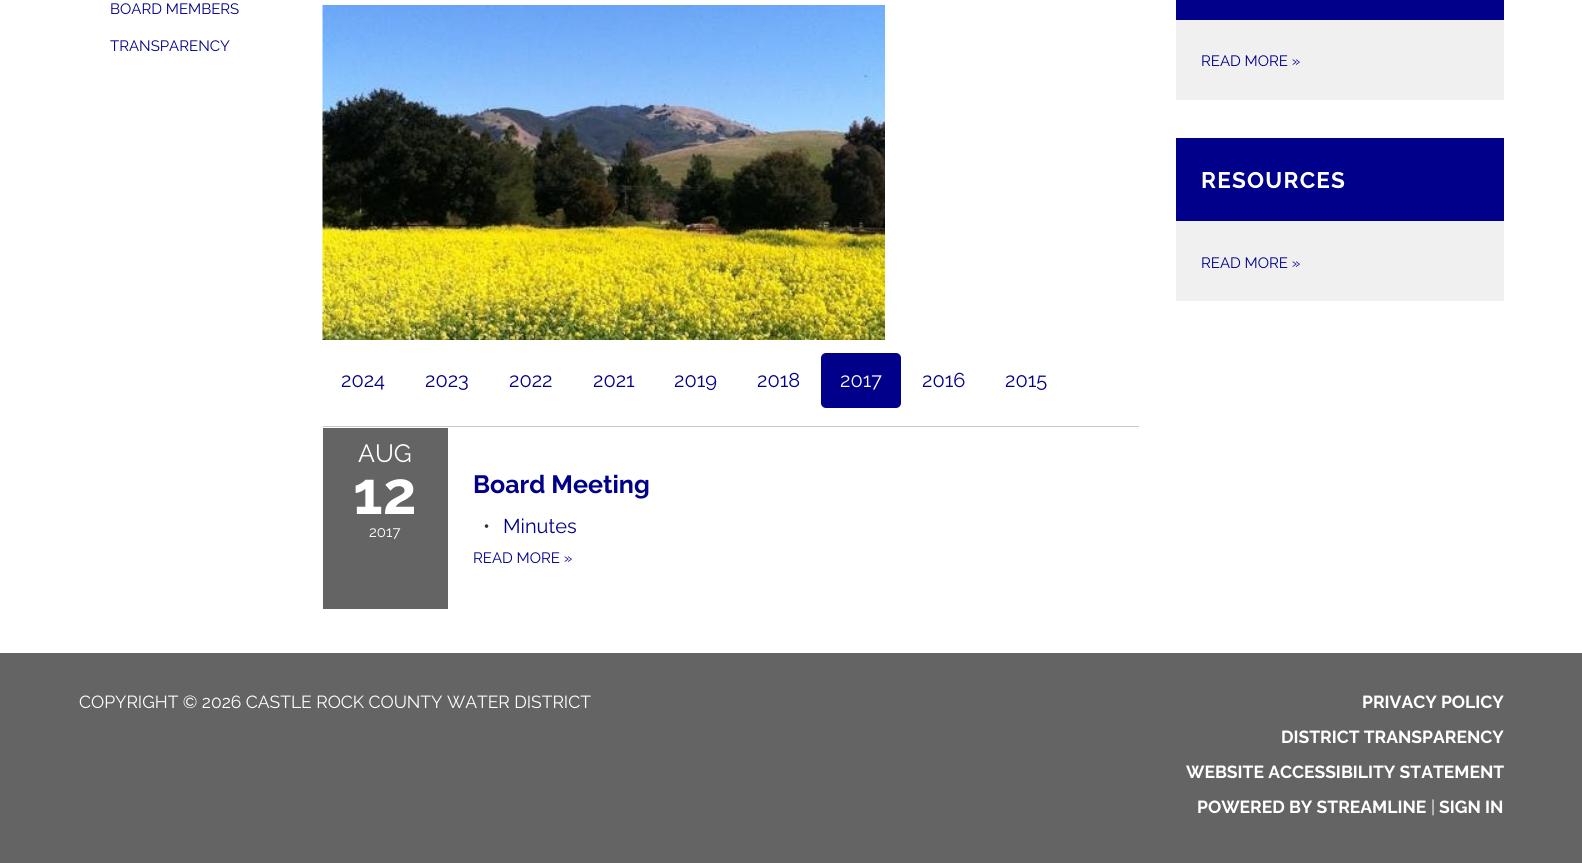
import math
import cairo

surface = cairo.ImageSurface(cairo.FORMAT_RGB24, 1582, 863)
cr = cairo.Context(surface)
options = cairo.FontOptions()
options.set_hint_metrics(cairo.HINT_METRICS_OFF)
options.set_hint_style(cairo.HINT_STYLE_NONE)
cr.set_font_options(options)
cr.set_miter_limit(4)


def rgb(code):
    cr.set_source_rgb(*(v / 255 for v in bytes.fromhex(code[-6:])))


def tracked(x, y, s, letter, word):
    cr.move_to(x, y)
    for ch in s:
        cr.show_text(ch)
        cr.rel_move_to(letter + word * (ch == ' '), 0)


def rrect(x, y, w, h, r):
    cr.new_sub_path()
    for i, (u, v) in enumerate([(x + w - r, y + h - r), (x + r, y + h - r), (x + r, y + r), (x + w - r, y + r)]):
        cr.arc(u, v, r, i * math.pi / 2, (i + 1) * math.pi / 2)
    cr.close_path()


def image(path, x, y, w, h):
    cr.save()
    cr.set_source_surface(cairo.ImageSurface.create_from_png(path), x, y)
    cr.rectangle(x, y, w, h)
    cr.fill()
    cr.restore()


rgb("#646464")
cr.paint()
for x, y, w, h, color in [
    (0, 0, 1582, 653, "#ffffff"),
    (1176, 20, 328, 80, "#f0f0f0"),
    (1176, 0, 328, 20, "#00008b"),
    (1176, 221, 328, 80, "#f0f0f0"),
    (1176, 138, 328, 83, "#00008b"),
]:
    rgb(color)
    cr.rectangle(x, y, w, h)
    cr.fill()
image("img/1.png", 322, 5, 563, 335)
rrect(821, 353, 80, 55, 5)
cr.fill()
rgb("#c8c9cb")
cr.rectangle(323, 426, 816, 1)
cr.fill()
rgb("#646464")
cr.rectangle(323, 428, 125, 181)
cr.fill()
cr.select_font_face("Raleway")
cr.set_font_size(15)
rgb("#00008b")
for x, y, s in [
    (110, 14, "BOARD MEMBERS"),
    (110, 51, "TRANSPARENCY"),
    (1201, 66, "READ MORE »"),
]:
    cr.move_to(x, y)
    cr.show_text(s)
cr.select_font_face("Raleway", cairo.FONT_SLANT_NORMAL, cairo.FONT_WEIGHT_BOLD)
cr.set_font_size(22.5)
rgb("#ffffff")
tracked(1201, 188, "RESOURCES", 1.25, 0)
cr.select_font_face("Raleway")
cr.set_font_size(15)
rgb("#00008b")
cr.move_to(1201, 268)
cr.show_text("READ MORE »")
cr.set_font_size(20)
for x, y, s in [
    (341, 387, "2024"),
    (425, 387, "2023"),
    (509, 387, "2022"),
    (593, 387, "2021"),
    (674, 387, "2019"),
    (757, 387, "2018"),
]:
    cr.move_to(x, y)
    cr.show_text(s)
rgb("#ffffff")
cr.move_to(840, 387)
cr.show_text("2017")
rgb("#00008b")
cr.move_to(922, 387)
cr.show_text("2016")
cr.move_to(1005, 387)
cr.show_text("2015")
cr.set_font_size(25)
rgb("#ffffff")
cr.move_to(358, 462)
cr.show_text("AUG")
cr.select_font_face("Raleway", cairo.FONT_SLANT_NORMAL, cairo.FONT_WEIGHT_BOLD)
cr.set_font_size(60)
cr.move_to(353, 514)
cr.show_text("12")
cr.select_font_face("Raleway")
cr.set_font_size(15)
cr.move_to(369, 537)
cr.show_text("2017")
cr.select_font_face("Raleway", cairo.FONT_SLANT_NORMAL, cairo.FONT_WEIGHT_BOLD)
cr.set_font_size(25)
rgb("#00008b")
cr.move_to(473, 493)
cr.show_text("Board Meeting")
cr.select_font_face("Raleway")
cr.set_font_size(20)
rgb("#333333")
cr.move_to(483, 533)
cr.show_text("•")
rgb("#00008b")
cr.move_to(503, 533)
cr.show_text("Minutes")
cr.set_font_size(15)
cr.move_to(473, 563)
cr.show_text("READ MORE »")
cr.set_font_size(17.5)
rgb("#ffffff")
cr.move_to(79, 708)
cr.show_text("COPYRIGHT © 2026 CASTLE ROCK COUNTY WATER DISTRICT")
cr.select_font_face("Raleway", cairo.FONT_SLANT_NORMAL, cairo.FONT_WEIGHT_BOLD)
for x, y, s in [
    (1362, 708, "PRIVACY POLICY"),
    (1281, 743, "DISTRICT TRANSPARENCY"),
    (1186, 778, "WEBSITE ACCESSIBILITY STATEMENT"),
    (1197, 813, "POWERED BY STREAMLINE"),
]:
    cr.move_to(x, y)
    cr.show_text(s)
cr.select_font_face("Raleway")
cr.move_to(1431, 813)
cr.show_text("|")
cr.select_font_face("Raleway", cairo.FONT_SLANT_NORMAL, cairo.FONT_WEIGHT_BOLD)
cr.move_to(1439, 813)
cr.show_text("SIGN IN")
surface.write_to_png("page.png")
